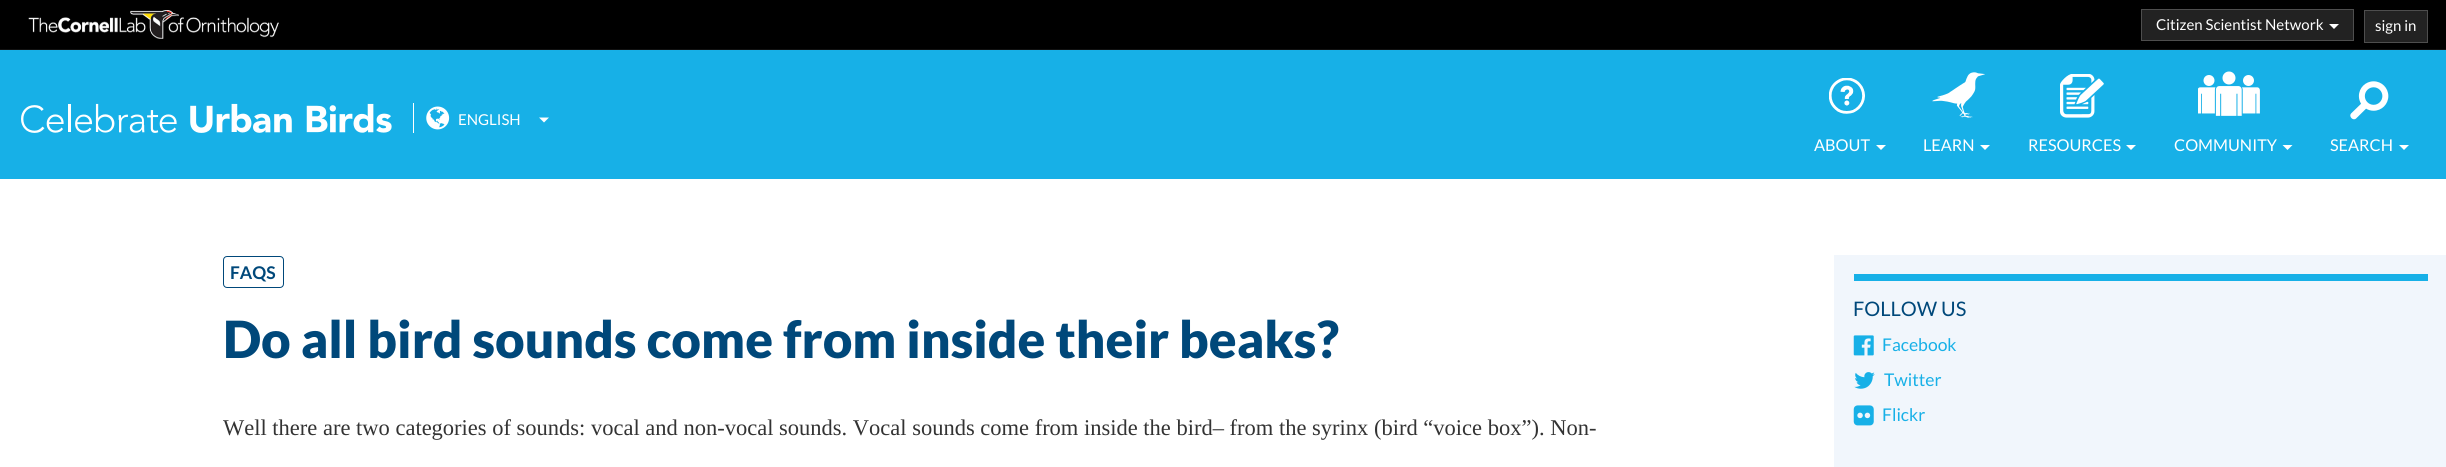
import math
import cairo

surface = cairo.ImageSurface(cairo.FORMAT_RGB24, 2446, 467)
cr = cairo.Context(surface)
options = cairo.FontOptions()
options.set_hint_metrics(cairo.HINT_METRICS_OFF)
options.set_hint_style(cairo.HINT_STYLE_NONE)
cr.set_font_options(options)
cr.set_miter_limit(4)


def rgb(code):
    cr.set_source_rgb(*(v / 255 for v in bytes.fromhex(code[-6:])))


def rrect(x, y, w, h, r):
    cr.new_sub_path()
    for i, (u, v) in enumerate([(x + w - r, y + h - r), (x + r, y + h - r), (x + r, y + r), (x + w - r, y + r)]):
        cr.arc(u, v, r, i * math.pi / 2, (i + 1) * math.pi / 2)
    cr.close_path()


def image(path, x, y, w, h):
    cr.save()
    cr.set_source_surface(cairo.ImageSurface.create_from_png(path), x, y)
    cr.rectangle(x, y, w, h)
    cr.fill()
    cr.restore()


rgb("#ffffff")
cr.paint()
rgb("#000000")
cr.rectangle(0, 0, 2446, 49)
cr.fill()
rgb("#111111")
cr.rectangle(0, 49, 2446, 1)
cr.fill()
image("img/1.png", 28, 10, 251, 29)
rgb("#222222")
cr.rectangle(2141.5, 9.5, 212, 31)
cr.fill_preserve()
rgb("#4e4e4e")
cr.set_line_width(1)
cr.stroke()
rgb("#ffffff")
cr.new_path()
cr.move_to(2329, 24)
cr.line_to(2339, 24)
cr.line_to(2334, 29)
cr.close_path()
cr.fill()
rgb("#222222")
cr.rectangle(2364.5, 10.5, 63, 32)
cr.fill_preserve()
rgb("#4e4e4e")
cr.stroke()
rgb("#17b0e7")
cr.rectangle(0, 50, 2446, 129)
cr.fill()
image("img/2.png", 21, 103, 371, 30)
rgb("#ffffff")
cr.rectangle(413, 103, 1, 30)
cr.fill()
image("img/3.png", 426, 106, 24, 24)
cr.new_path()
cr.move_to(539, 117.5)
cr.line_to(549, 117.5)
cr.line_to(544, 122.5)
cr.close_path()
cr.fill()
image("img/4.png", 1829, 78, 36, 36)
cr.new_path()
cr.move_to(1876, 145)
cr.line_to(1886, 145)
cr.line_to(1881, 150)
cr.close_path()
cr.fill()
image("img/5.png", 1932, 72, 53, 46)
cr.new_path()
cr.move_to(1980, 145)
cr.line_to(1990, 145)
cr.line_to(1985, 150)
cr.close_path()
cr.fill()
image("img/6.png", 2060, 74, 44, 44)
cr.new_path()
cr.move_to(2126, 145)
cr.line_to(2136, 145)
cr.line_to(2131, 150)
cr.close_path()
cr.fill()
image("img/7.png", 2198, 71, 62, 45)
cr.new_path()
cr.move_to(2282.5, 145)
cr.line_to(2292.5, 145)
cr.line_to(2287.5, 150)
cr.close_path()
cr.fill()
image("img/8.png", 2350, 81, 39, 39)
cr.new_path()
cr.move_to(2399, 145)
cr.line_to(2409, 145)
cr.line_to(2404, 150)
cr.close_path()
cr.fill()
rgb("#f1f6fc")
cr.rectangle(1834, 255, 612, 212)
cr.fill()
rrect(223.5, 256.5, 60, 31, 3.5)
rgb("#00487a")
cr.stroke()
rgb("#17b0e7")
cr.rectangle(1854, 274, 574, 7)
cr.fill()
image("img/9.png", 1853, 335, 21, 21)
image("img/10.png", 1854, 372, 21, 17)
image("img/11.png", 1853, 405, 21, 21)
cr.select_font_face("Lato")
cr.set_font_size(15)
rgb("#ffffff")
for x, y, s in [
    (2156, 30, "Citizen Scientist Network"),
    (2375, 31, "sign in"),
    (458, 125, "ENGLISH"),
]:
    cr.move_to(x, y)
    cr.show_text(s)
cr.set_font_size(16.25)
for x, y, s in [
    (1814, 151, "ABOUT"),
    (1923, 151, "LEARN"),
    (2028, 151, "RESOURCES"),
    (2174, 151, "COMMUNITY"),
    (2330, 151, "SEARCH"),
]:
    cr.move_to(x, y)
    cr.show_text(s)
cr.select_font_face("Lato", cairo.FONT_SLANT_NORMAL, cairo.FONT_WEIGHT_BOLD)
cr.set_font_size(17.5)
rgb("#00487a")
cr.move_to(230, 279)
cr.show_text("FAQS")
cr.select_font_face("Lato Black")
cr.set_font_size(51.25)
cr.move_to(223, 358)
cr.show_text("Do all bird sounds come from inside their beaks?")
cr.select_font_face("Liberation Serif")
cr.set_font_size(22.5)
rgb("#333333")
cr.move_to(223, 435)
cr.show_text("Well there are two categories of sounds: vocal and non-vocal sounds. Vocal sounds come from inside the bird– from the syrinx (bird “voice box”). Non-")
cr.select_font_face("Lato")
cr.set_font_size(20)
rgb("#00487a")
cr.move_to(1853, 316)
cr.show_text("FOLLOW US")
cr.set_font_size(17.5)
rgb("#17b0e7")
for x, y, s in [
    (1882, 351, "Facebook"),
    (1884, 386, "Twitter"),
    (1882, 421, "Flickr"),
]:
    cr.move_to(x, y)
    cr.show_text(s)
surface.write_to_png("page.png")
